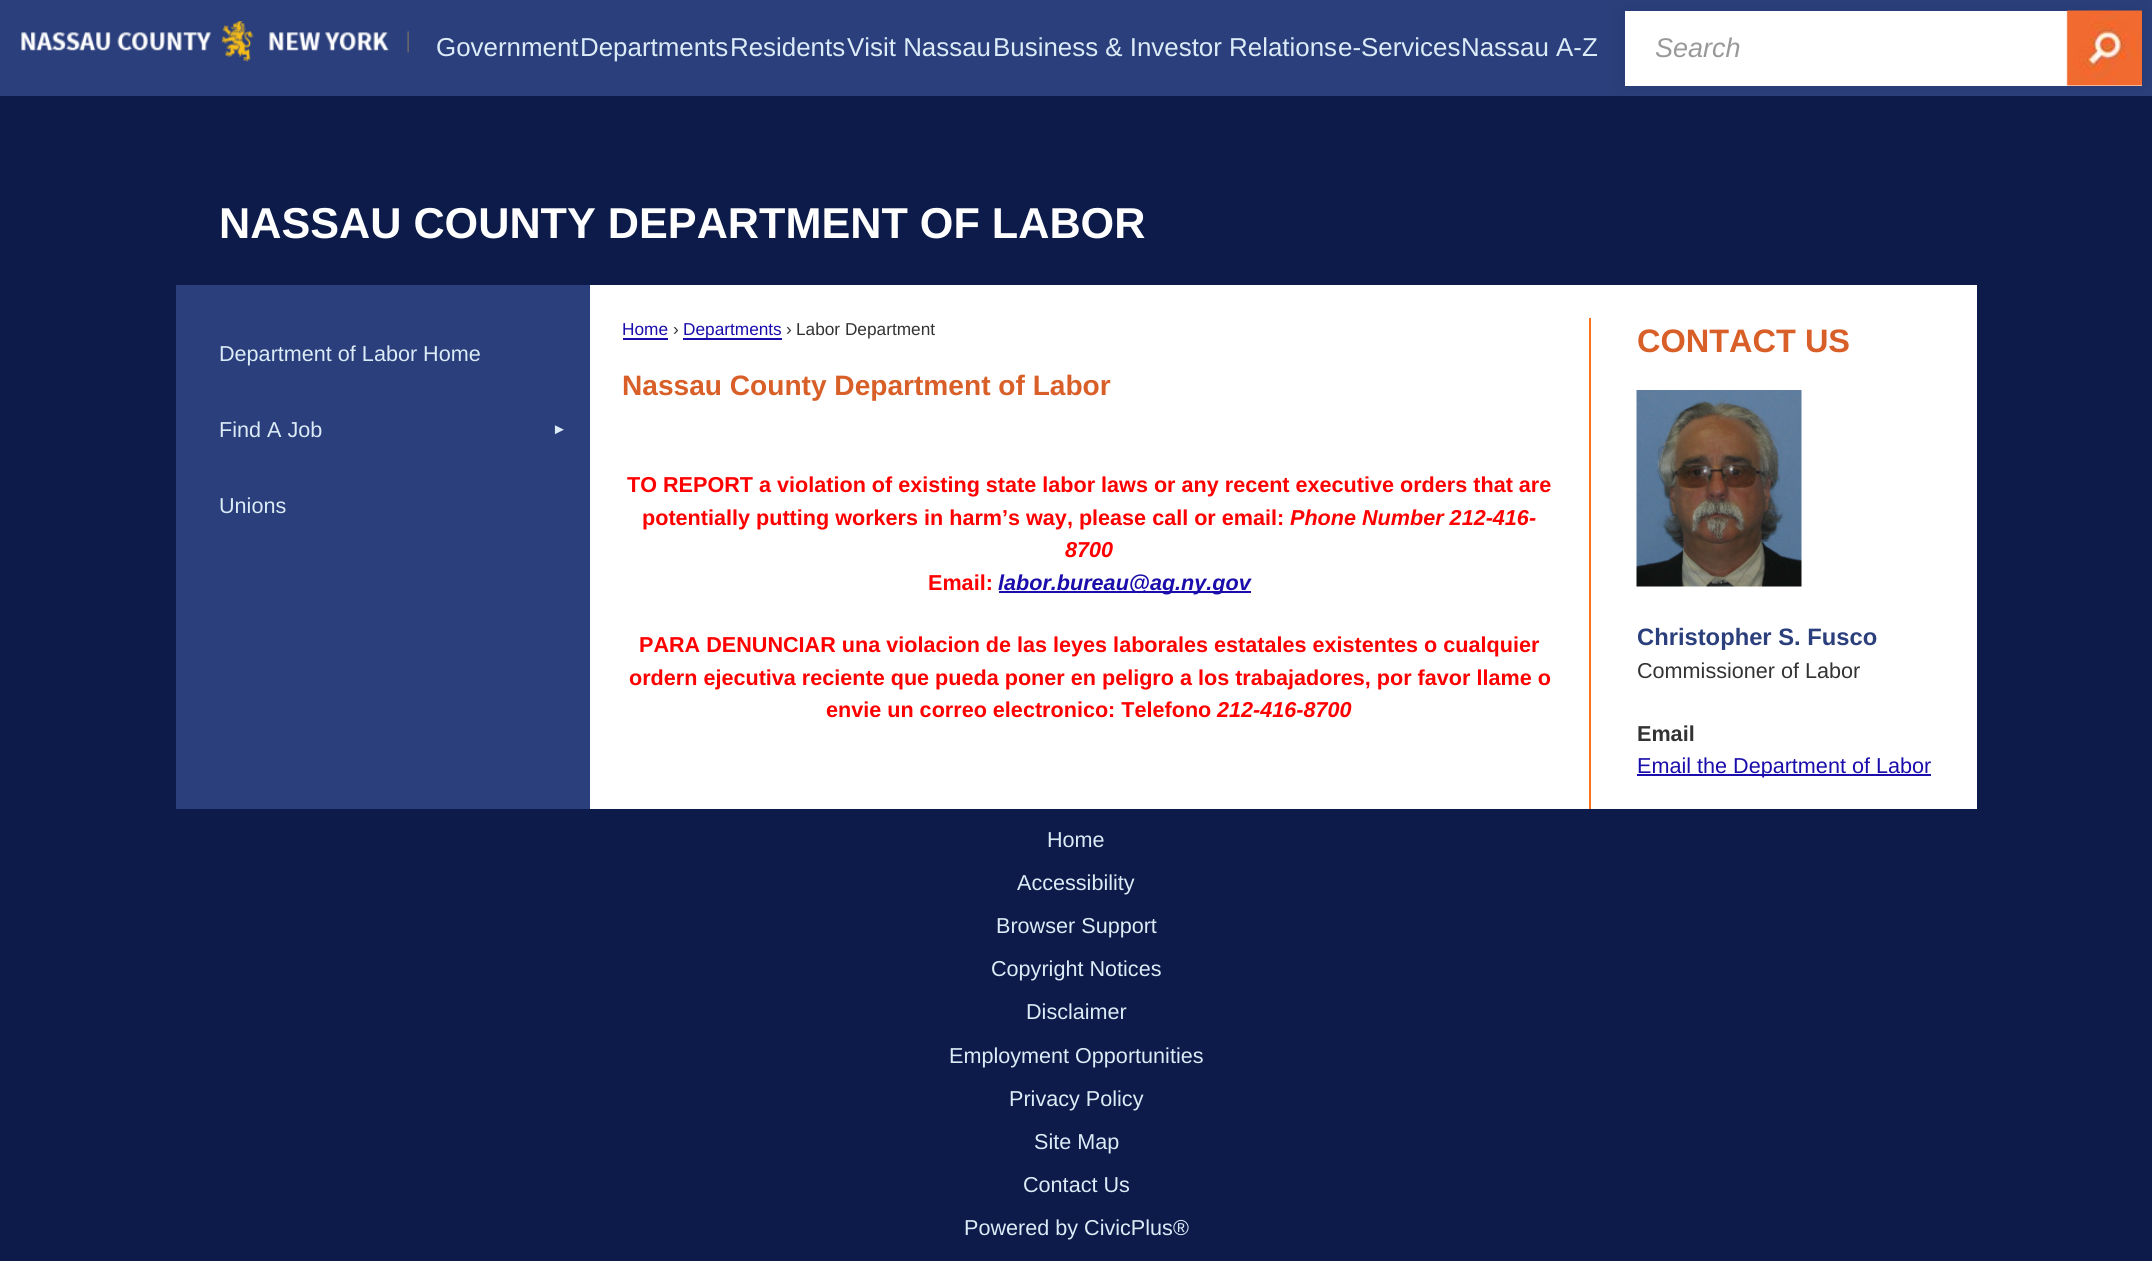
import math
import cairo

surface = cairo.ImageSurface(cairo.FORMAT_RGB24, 2152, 1261)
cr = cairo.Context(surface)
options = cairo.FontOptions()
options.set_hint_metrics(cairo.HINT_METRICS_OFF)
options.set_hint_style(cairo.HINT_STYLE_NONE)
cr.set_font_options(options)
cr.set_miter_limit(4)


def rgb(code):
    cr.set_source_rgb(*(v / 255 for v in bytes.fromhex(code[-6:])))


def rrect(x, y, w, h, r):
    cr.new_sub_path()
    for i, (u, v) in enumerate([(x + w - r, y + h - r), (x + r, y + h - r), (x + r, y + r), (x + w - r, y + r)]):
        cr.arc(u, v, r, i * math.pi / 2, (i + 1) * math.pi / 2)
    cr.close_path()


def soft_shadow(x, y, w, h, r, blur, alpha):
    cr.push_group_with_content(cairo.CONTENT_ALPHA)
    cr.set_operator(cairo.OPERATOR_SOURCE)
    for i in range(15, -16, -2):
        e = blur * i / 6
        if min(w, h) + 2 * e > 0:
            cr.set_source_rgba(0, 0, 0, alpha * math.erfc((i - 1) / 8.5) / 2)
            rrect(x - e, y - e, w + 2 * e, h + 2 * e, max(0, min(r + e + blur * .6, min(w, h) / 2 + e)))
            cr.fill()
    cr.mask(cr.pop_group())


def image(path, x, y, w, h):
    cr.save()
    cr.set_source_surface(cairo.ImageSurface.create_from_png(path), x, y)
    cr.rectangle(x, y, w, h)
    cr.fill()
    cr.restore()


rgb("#0c1b4a")
cr.paint()
rgb("#2b3f7c")
cr.rectangle(0, 0, 2152, 96)
cr.fill()
image("img/1.png", 21, 21, 388, 41)
rgb("#000000")
soft_shadow(1625, 11, 517, 75, 0, 11, 0.1)
rgb("#ffffff")
cr.rectangle(1625, 11, 517, 75)
cr.fill()
image("img/2.png", 2066, 10, 76, 76)
for x, y, w, h, color in [
    (590, 285, 1387, 524, "#ffffff"),
    (176, 285, 414, 524, "#2b3f7c"),
    (623, 338, 45, 2, "#1a0dab"),
    (683, 338, 99, 2, "#1a0dab"),
    (999, 591, 252, 2, "#1a0dab"),
    (1589, 318, 2, 491, "#fb731a"),
]:
    rgb(color)
    cr.rectangle(x, y, w, h)
    cr.fill()
image("img/3.png", 1636, 390, 166, 197)
rgb("#1a0dab")
cr.rectangle(1637, 774, 294, 2)
cr.fill()
cr.select_font_face("Liberation Sans")
cr.set_font_size(25.9)
rgb("#dbecf7")
for x, y, s in [
    (436, 56, "Government"),
    (580, 56, "Departments"),
    (730, 56, "Residents"),
    (847, 56, "Visit Nassau"),
    (993, 56, "Business & Investor Relations"),
    (1338, 56, "e-Services"),
    (1461, 56, "Nassau A-Z"),
]:
    cr.move_to(x, y)
    cr.show_text(s)
cr.select_font_face("Liberation Sans", cairo.FONT_SLANT_ITALIC)
cr.set_font_size(27)
rgb("#999999")
cr.move_to(1655, 57)
cr.show_text("Search")
cr.select_font_face("Liberation Sans", cairo.FONT_SLANT_NORMAL, cairo.FONT_WEIGHT_BOLD)
cr.set_font_size(43.2)
rgb("#ffffff")
cr.move_to(219, 238)
cr.show_text("NASSAU COUNTY DEPARTMENT OF LABOR")
cr.select_font_face("Liberation Sans")
cr.set_font_size(21.6)
rgb("#dbecf7")
cr.move_to(219, 361)
cr.show_text("Department of Labor Home")
cr.move_to(219, 437)
cr.show_text("Find A Job")
cr.select_font_face("Liberation Sans", cairo.FONT_SLANT_NORMAL, cairo.FONT_WEIGHT_BOLD)
cr.set_font_size(15)
cr.move_to(552, 434)
cr.show_text("►")
cr.select_font_face("Liberation Sans")
cr.set_font_size(21.6)
cr.move_to(219, 513)
cr.show_text("Unions")
cr.set_font_size(17.25)
rgb("#1a0dab")
cr.move_to(622, 335)
cr.show_text("Home")
rgb("#333333")
cr.move_to(673, 335)
cr.show_text("›")
rgb("#1a0dab")
cr.move_to(683, 335)
cr.show_text("Departments")
rgb("#333333")
cr.move_to(786, 335)
cr.show_text("›")
cr.move_to(796, 335)
cr.show_text("Labor Department")
cr.select_font_face("Liberation Sans", cairo.FONT_SLANT_NORMAL, cairo.FONT_WEIGHT_BOLD)
cr.set_font_size(28.1)
rgb("#d95f29")
cr.move_to(622, 395)
cr.show_text("Nassau County Department of Labor")
cr.set_font_size(21.6)
rgb("#ff0000")
cr.move_to(627, 492)
cr.show_text("TO REPORT a violation of existing state labor laws or any recent executive orders that are")
cr.move_to(642, 525)
cr.show_text("potentially putting workers in harm’s way, please call or email:")
cr.select_font_face("Liberation Sans", cairo.FONT_SLANT_ITALIC, cairo.FONT_WEIGHT_BOLD)
cr.move_to(1290, 525)
cr.show_text("Phone Number 212-416-")
cr.move_to(1065, 557)
cr.show_text("8700")
cr.select_font_face("Liberation Sans", cairo.FONT_SLANT_NORMAL, cairo.FONT_WEIGHT_BOLD)
cr.move_to(928, 590)
cr.show_text("Email:")
cr.select_font_face("Liberation Sans", cairo.FONT_SLANT_ITALIC, cairo.FONT_WEIGHT_BOLD)
rgb("#1a0dab")
cr.move_to(998, 590)
cr.show_text("labor.bureau@ag.ny.gov")
cr.select_font_face("Liberation Sans", cairo.FONT_SLANT_NORMAL, cairo.FONT_WEIGHT_BOLD)
rgb("#ff0000")
for x, y, s in [
    (639, 652, "PARA DENUNCIAR una violacion de las leyes laborales estatales existentes o cualquier"),
    (629, 685, "ordern ejecutiva reciente que pueda poner en peligro a los trabajadores, por favor llame o"),
    (826, 717, "envie un correo electronico: Telefono"),
]:
    cr.move_to(x, y)
    cr.show_text(s)
cr.select_font_face("Liberation Sans", cairo.FONT_SLANT_ITALIC, cairo.FONT_WEIGHT_BOLD)
cr.move_to(1217, 717)
cr.show_text("212-416-8700")
cr.select_font_face("Liberation Sans", cairo.FONT_SLANT_NORMAL, cairo.FONT_WEIGHT_BOLD)
cr.set_font_size(32.5)
rgb("#d95f29")
cr.move_to(1637, 352)
cr.show_text("CONTACT US")
cr.set_font_size(23.75)
rgb("#2b3f7c")
cr.move_to(1637, 645)
cr.show_text("Christopher S. Fusco")
cr.select_font_face("Liberation Sans")
cr.set_font_size(21.6)
rgb("#333333")
cr.move_to(1637, 678)
cr.show_text("Commissioner of Labor")
cr.select_font_face("Liberation Sans", cairo.FONT_SLANT_NORMAL, cairo.FONT_WEIGHT_BOLD)
cr.move_to(1637, 741)
cr.show_text("Email")
cr.select_font_face("Liberation Sans")
rgb("#1a0dab")
cr.move_to(1637, 773)
cr.show_text("Email the Department of Labor")
rgb("#dbecf7")
for x, y, s in [
    (1047, 847, "Home"),
    (1017, 890, "Accessibility"),
    (996, 933, "Browser Support"),
    (991, 976, "Copyright Notices"),
    (1026, 1019, "Disclaimer"),
    (949, 1063, "Employment Opportunities"),
    (1009, 1106, "Privacy Policy"),
    (1034, 1149, "Site Map"),
    (1023, 1192, "Contact Us"),
    (964, 1235, "Powered by CivicPlus®"),
]:
    cr.move_to(x, y)
    cr.show_text(s)
surface.write_to_png("page.png")
